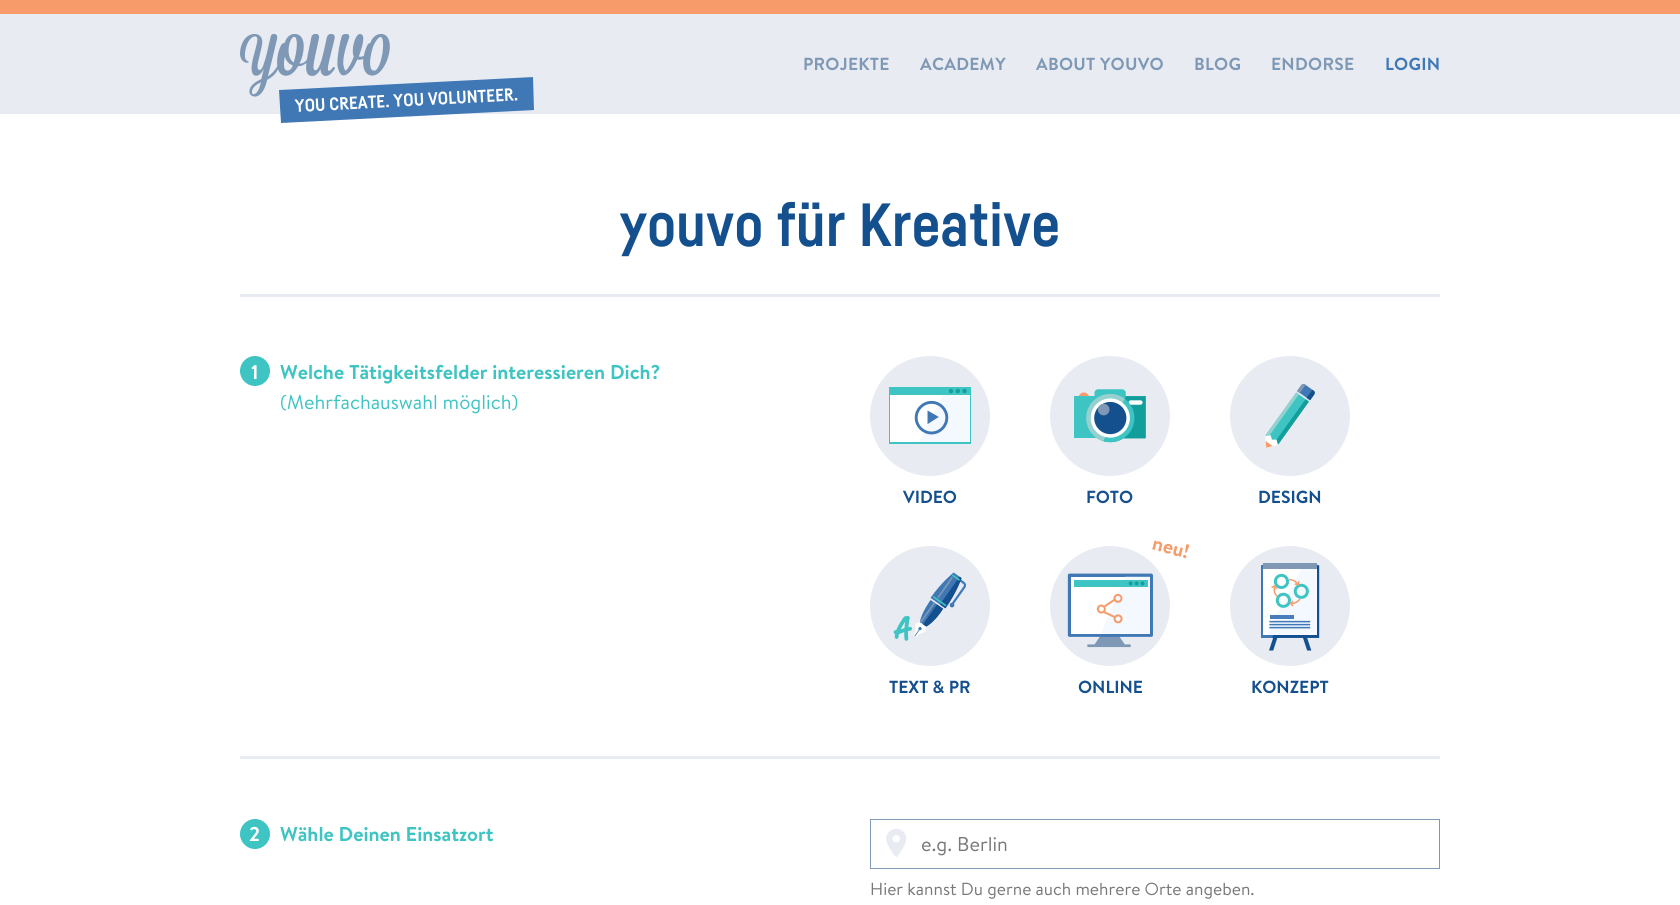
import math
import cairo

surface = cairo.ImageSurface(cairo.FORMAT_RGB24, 1680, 905)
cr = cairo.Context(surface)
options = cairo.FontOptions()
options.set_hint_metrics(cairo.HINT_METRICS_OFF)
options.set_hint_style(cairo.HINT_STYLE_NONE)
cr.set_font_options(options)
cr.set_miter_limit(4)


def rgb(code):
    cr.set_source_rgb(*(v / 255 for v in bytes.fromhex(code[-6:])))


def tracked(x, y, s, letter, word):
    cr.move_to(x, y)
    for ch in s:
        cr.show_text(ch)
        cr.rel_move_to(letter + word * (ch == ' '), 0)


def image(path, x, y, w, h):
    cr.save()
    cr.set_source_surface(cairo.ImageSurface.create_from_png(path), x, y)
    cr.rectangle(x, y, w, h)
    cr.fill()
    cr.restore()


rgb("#f79b6a")
cr.paint()
rgb("#e8ecf2")
cr.rectangle(0, 14, 1680, 100)
cr.fill()
rgb("#ffffff")
cr.rectangle(0, 114, 1680, 791)
cr.fill()
rgb("#3f78b5")
cr.new_path()
cr.move_to(279, 90)
cr.line_to(533, 77)
cr.line_to(534, 110)
cr.line_to(281, 123)
cr.close_path()
cr.fill()
rgb("#e8ecf2")
cr.rectangle(240, 294, 1200, 3)
cr.fill()
cr.rectangle(240, 756, 1200, 3)
cr.fill()
rgb("#3ec4c2")
cr.arc(255, 371, 15, 0, 2 * math.pi)
cr.fill()
rgb("#e8ecf2")
cr.arc(930, 416, 60, 0, 2 * math.pi)
cr.fill()
image("img/2.png", 889, 387, 82, 57)
cr.arc(1110, 416, 60, 0, 2 * math.pi)
cr.fill()
image("img/3.png", 1074, 389, 72, 54)
cr.arc(1290, 416, 60, 0, 2 * math.pi)
cr.fill()
image("img/4.png", 1265, 384, 50, 64)
cr.arc(930, 606, 60, 0, 2 * math.pi)
cr.fill()
image("img/5.png", 893, 572, 73, 69)
cr.arc(1110, 606, 60, 0, 2 * math.pi)
cr.fill()
image("img/6.png", 1067, 573, 86, 75)
cr.arc(1290, 606, 60, 0, 2 * math.pi)
cr.fill()
image("img/7.png", 1261, 563, 59, 88)
rgb("#3ec4c2")
cr.arc(255, 834, 15, 0, 2 * math.pi)
cr.fill()
image("img/8.png", 886, 828, 21, 30)
cr.rectangle(870.5, 819.5, 569, 49)
rgb("#7e98b5")
cr.set_line_width(1)
cr.stroke()
cr.select_font_face("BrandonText", cairo.FONT_SLANT_NORMAL, cairo.FONT_WEIGHT_BOLD)
cr.set_font_size(17.5)
for x, y, s in [
    (803, 70, "PROJEKTE"),
    (920, 70, "ACADEMY"),
    (1036, 70, "ABOUT YOUVO"),
    (1194, 70, "BLOG"),
    (1271, 70, "ENDORSE"),
]:
    tracked(x, y, s, 0.25, 0)
rgb("#3f78b5")
tracked(1385, 70, "LOGIN", 0.25, 0)
cr.select_font_face("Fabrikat", cairo.FONT_SLANT_NORMAL, cairo.FONT_WEIGHT_BOLD)
rgb("#ffffff")
cr.save()
cr.translate(295, 112)
cr.rotate(-3 * math.pi / 180)
cr.move_to(0, 0)
cr.show_text("YOU CREATE. YOU VOLUNTEER.")
cr.restore()
image("img/1.png", 240, 34, 150, 63)
cr.set_font_size(60)
rgb("#15508e")
cr.move_to(619, 246)
cr.show_text("youvo für Kreative")
cr.select_font_face("BrandonText", cairo.FONT_SLANT_NORMAL, cairo.FONT_WEIGHT_BOLD)
cr.set_font_size(20)
rgb("#ffffff")
cr.move_to(251, 379)
cr.show_text("1")
rgb("#3ec4c2")
cr.move_to(280, 379)
cr.show_text("Welche Tätigkeitsfelder interessieren Dich?")
cr.select_font_face("BrandonText")
cr.move_to(280, 409)
cr.show_text("(Mehrfachauswahl möglich)")
cr.select_font_face("BrandonText", cairo.FONT_SLANT_NORMAL, cairo.FONT_WEIGHT_BOLD)
cr.set_font_size(17.5)
rgb("#15508e")
for x, y, s in [
    (903, 503, "VIDEO"),
    (1086, 503, "FOTO"),
    (1258, 503, "DESIGN"),
    (889, 693, "TEXT & PR"),
]:
    cr.move_to(x, y)
    cr.show_text(s)
cr.set_font_size(20)
rgb("#f79b6a")
cr.save()
cr.translate(1151, 549)
cr.rotate(15 * math.pi / 180)
cr.move_to(0, 0)
cr.show_text("neu!")
cr.restore()
cr.set_font_size(17.5)
rgb("#15508e")
cr.move_to(1078, 693)
cr.show_text("ONLINE")
cr.move_to(1251, 693)
cr.show_text("KONZEPT")
cr.set_font_size(20)
rgb("#ffffff")
cr.move_to(249, 841)
cr.show_text("2")
rgb("#3ec4c2")
cr.move_to(280, 841)
cr.show_text("Wähle Deinen Einsatzort")
cr.select_font_face("BrandonText")
rgb("#787878")
cr.move_to(921, 851)
cr.show_text("e.g. Berlin")
cr.set_font_size(17.5)
cr.move_to(870, 895)
cr.show_text("Hier kannst Du gerne auch mehrere Orte angeben.")
surface.write_to_png("page.png")
